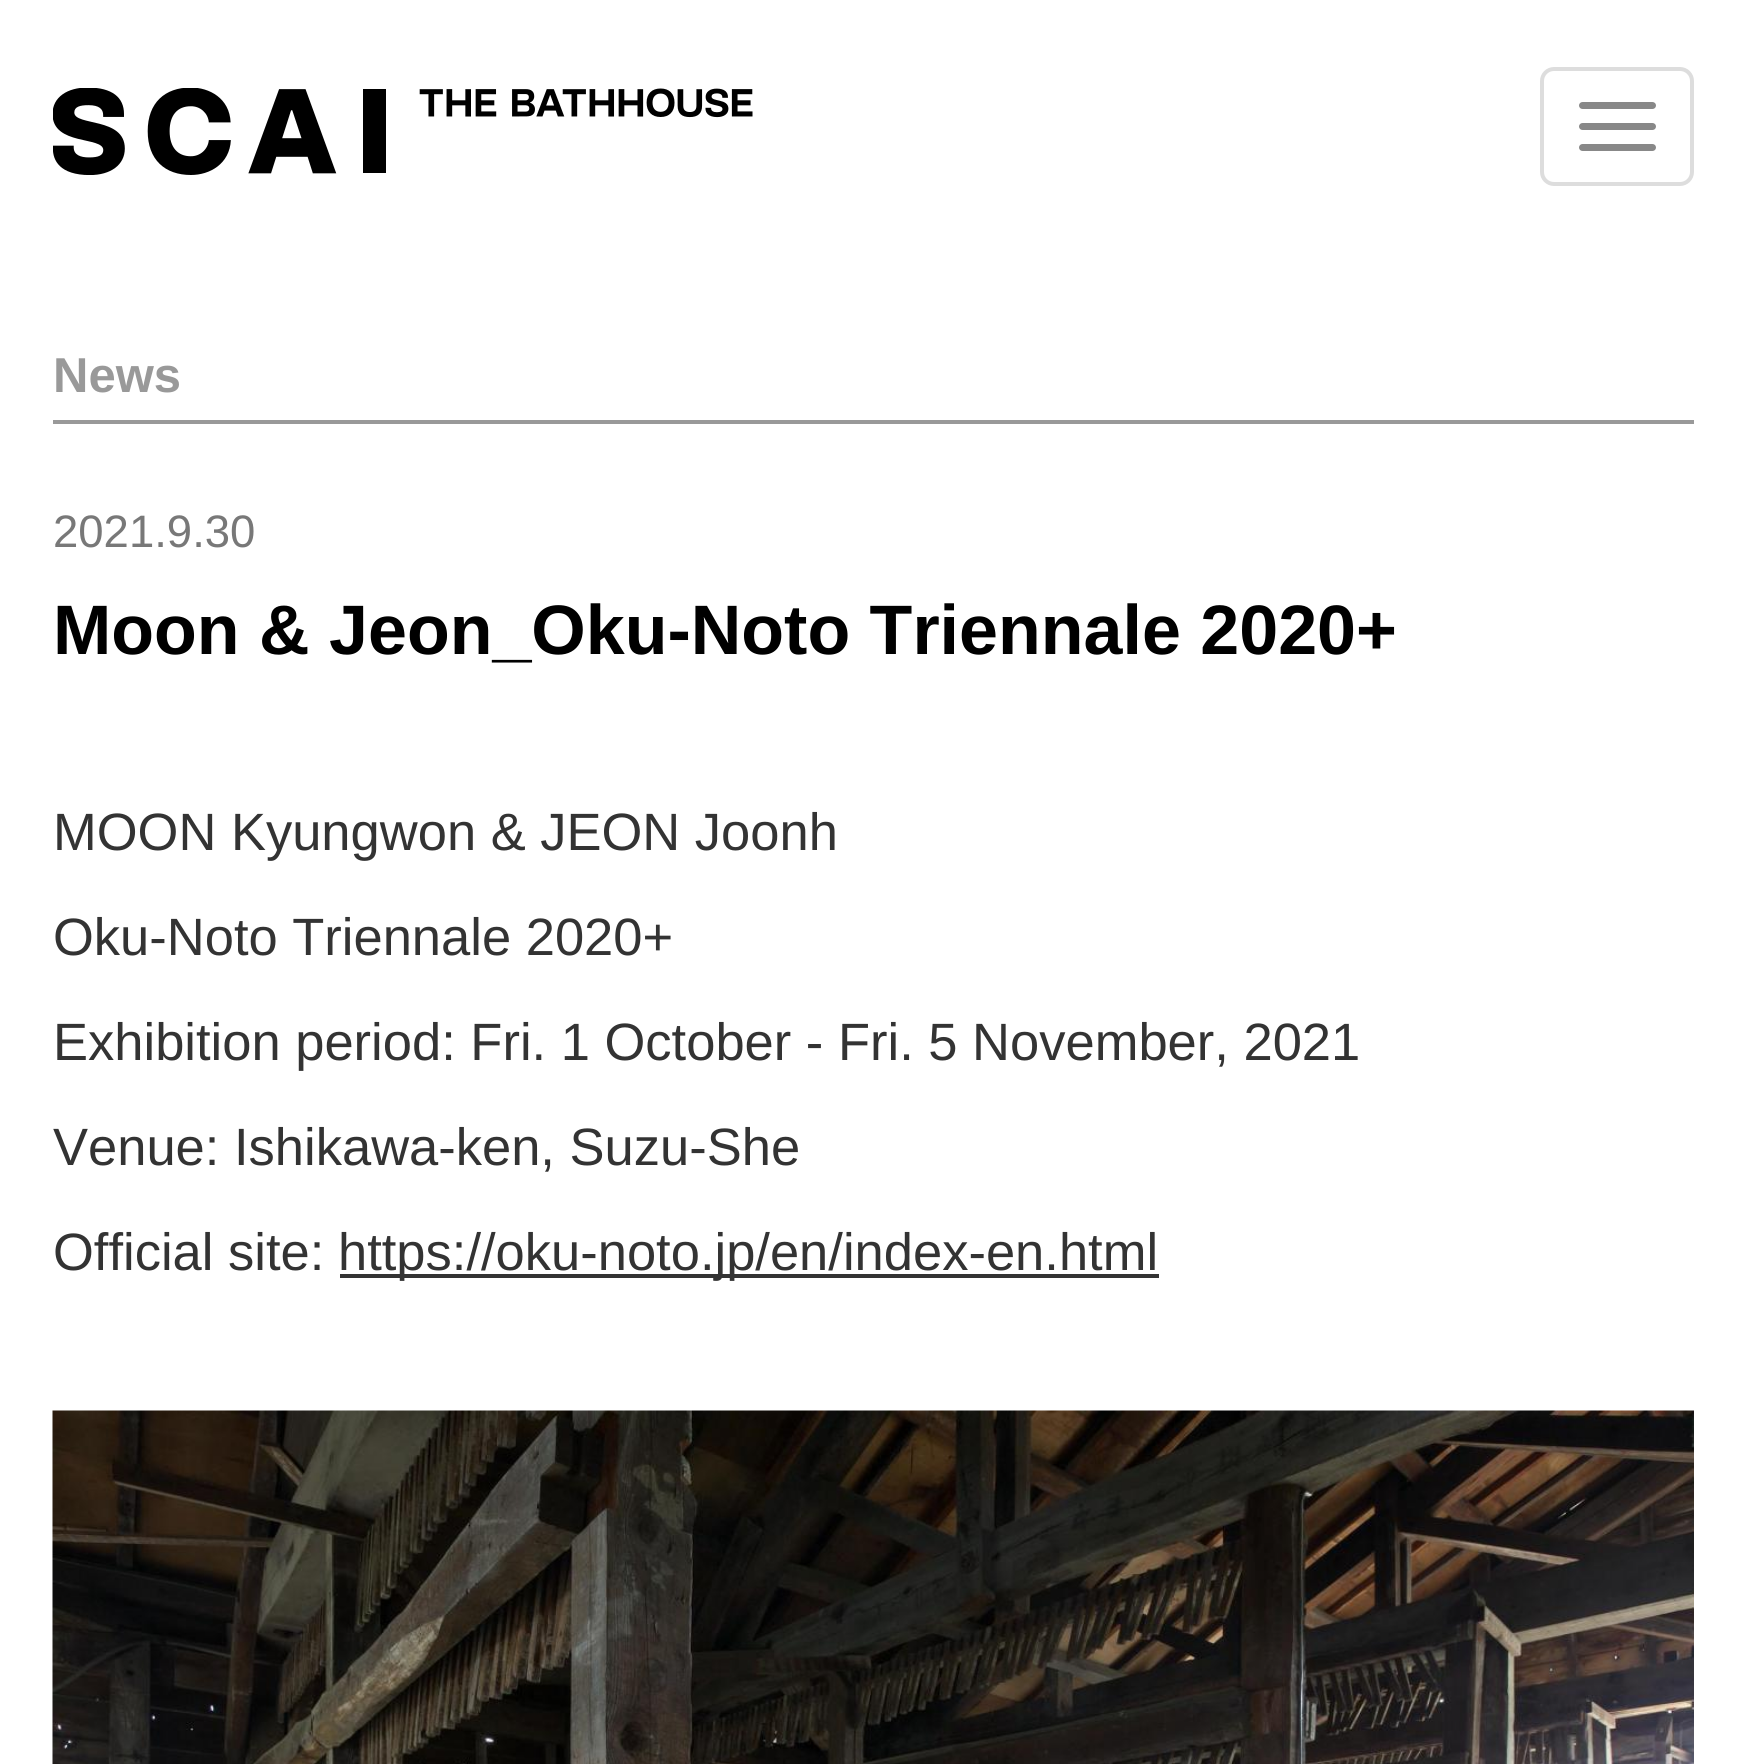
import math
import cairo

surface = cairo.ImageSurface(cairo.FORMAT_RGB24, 1746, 1764)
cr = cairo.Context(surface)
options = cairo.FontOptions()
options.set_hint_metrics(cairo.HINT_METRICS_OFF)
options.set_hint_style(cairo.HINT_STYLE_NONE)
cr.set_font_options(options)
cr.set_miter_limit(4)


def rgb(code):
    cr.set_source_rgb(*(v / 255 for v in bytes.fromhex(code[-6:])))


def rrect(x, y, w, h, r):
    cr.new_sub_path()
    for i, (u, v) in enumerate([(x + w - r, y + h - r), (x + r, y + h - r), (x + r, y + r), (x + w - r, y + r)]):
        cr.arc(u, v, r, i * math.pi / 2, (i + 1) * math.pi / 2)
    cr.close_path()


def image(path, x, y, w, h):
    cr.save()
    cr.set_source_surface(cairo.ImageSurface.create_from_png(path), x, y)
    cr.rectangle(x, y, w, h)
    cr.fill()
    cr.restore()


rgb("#ffffff")
cr.paint()
image("img/1.png", 53, 88, 700, 87)
rrect(1542, 69, 150, 115, 12)
rgb("#dddddd")
cr.set_line_width(4)
cr.stroke()
rgb("#888888")
rrect(1579, 102, 77, 7, 3.5)
cr.fill()
rrect(1579, 123, 77, 7, 3.5)
cr.fill()
rrect(1579, 144, 77, 7, 3.5)
cr.fill()
rgb("#999999")
cr.rectangle(53, 420, 1641, 4)
cr.fill()
rgb("#333333")
cr.rectangle(340, 1274, 819, 4)
cr.fill()
image("img/2.png", 52, 1410, 1642, 354)
cr.select_font_face("Liberation Sans", cairo.FONT_SLANT_NORMAL, cairo.FONT_WEIGHT_BOLD)
cr.set_font_size(49)
rgb("#999999")
cr.move_to(53, 392)
cr.show_text("News")
cr.select_font_face("Liberation Sans")
cr.set_font_size(45.5)
rgb("#787878")
cr.move_to(53, 547)
cr.show_text("2021.9.30")
cr.select_font_face("Liberation Sans", cairo.FONT_SLANT_NORMAL, cairo.FONT_WEIGHT_BOLD)
cr.set_font_size(70)
rgb("#000000")
cr.move_to(53, 654)
cr.show_text("Moon & Jeon_Oku-Noto Triennale 2020+")
cr.select_font_face("Liberation Sans")
cr.set_font_size(52.5)
rgb("#333333")
for x, y, s in [
    (53, 850, "MOON Kyungwon & JEON Joonh"),
    (53, 955, "Oku-Noto Triennale 2020+"),
    (53, 1060, "Exhibition period: Fri. 1 October - Fri. 5 November, 2021"),
    (53, 1165, "Venue: Ishikawa-ken, Suzu-She"),
    (53, 1270, "Official site:"),
    (338, 1270, "https://oku-noto.jp/en/index-en.html"),
]:
    cr.move_to(x, y)
    cr.show_text(s)
surface.write_to_png("page.png")
